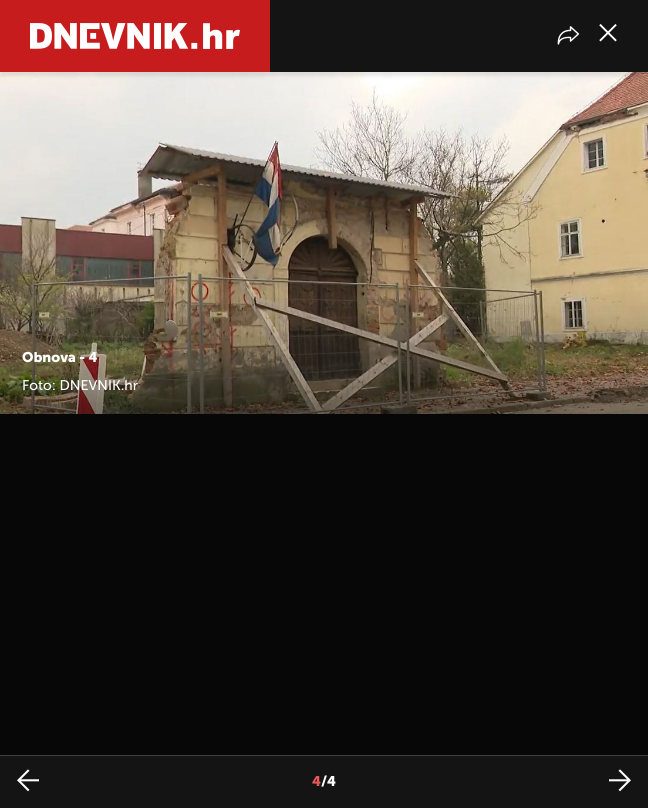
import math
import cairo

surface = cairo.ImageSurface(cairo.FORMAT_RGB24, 648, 808)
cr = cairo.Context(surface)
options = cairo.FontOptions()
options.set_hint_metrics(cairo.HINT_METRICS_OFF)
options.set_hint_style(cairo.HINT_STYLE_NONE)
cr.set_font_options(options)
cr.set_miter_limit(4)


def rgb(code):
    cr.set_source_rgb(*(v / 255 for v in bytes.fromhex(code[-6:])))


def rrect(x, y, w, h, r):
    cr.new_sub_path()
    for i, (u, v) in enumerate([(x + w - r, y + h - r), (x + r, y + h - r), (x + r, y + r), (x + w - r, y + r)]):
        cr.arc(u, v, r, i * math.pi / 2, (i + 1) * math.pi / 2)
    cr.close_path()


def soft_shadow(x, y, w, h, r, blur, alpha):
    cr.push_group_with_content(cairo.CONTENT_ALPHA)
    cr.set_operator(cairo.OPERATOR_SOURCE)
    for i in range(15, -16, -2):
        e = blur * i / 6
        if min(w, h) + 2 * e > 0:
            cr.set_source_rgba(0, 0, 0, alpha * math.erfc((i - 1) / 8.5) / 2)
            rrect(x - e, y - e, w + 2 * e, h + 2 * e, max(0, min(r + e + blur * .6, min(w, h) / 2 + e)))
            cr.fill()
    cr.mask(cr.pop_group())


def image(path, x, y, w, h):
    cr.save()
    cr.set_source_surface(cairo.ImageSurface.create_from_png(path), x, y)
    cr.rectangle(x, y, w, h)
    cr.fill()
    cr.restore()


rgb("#070707")
cr.paint()
image("img/4.png", 0, 72, 648, 342)
rgb("#000000")
soft_shadow(0, 4, 648, 72, 0, 2, 0.1)
rgb("#141414")
cr.rectangle(270, 0, 378, 72)
cr.fill()
rgb("#c71c1d")
cr.rectangle(0, 0, 270, 72)
cr.fill()
image("img/1.png", 30, 23, 210, 26)
image("img/2.png", 557, 26, 23, 19)
image("img/3.png", 599, 24, 18, 18)
rgb("#141414")
cr.rectangle(0, 756, 648, 52)
cr.fill()
rgb("#3d3d3d")
cr.rectangle(0, 755, 648, 1)
cr.fill()
image("img/5.png", 17, 769, 22, 23)
image("img/6.png", 609, 769, 22, 23)
cr.select_font_face("Museo Sans")
cr.set_font_size(14)
rgb("#ffffff")
cr.move_to(22, 362)
cr.show_text("Obnova - 4")
cr.select_font_face("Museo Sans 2")
cr.move_to(22, 390)
cr.show_text("Foto: DNEVNIK.hr")
cr.select_font_face("Museo Sans")
rgb("#e95858")
cr.move_to(312, 786)
cr.show_text("4")
rgb("#ffffff")
cr.move_to(321, 786)
cr.show_text("/4")
surface.write_to_png("page.png")
